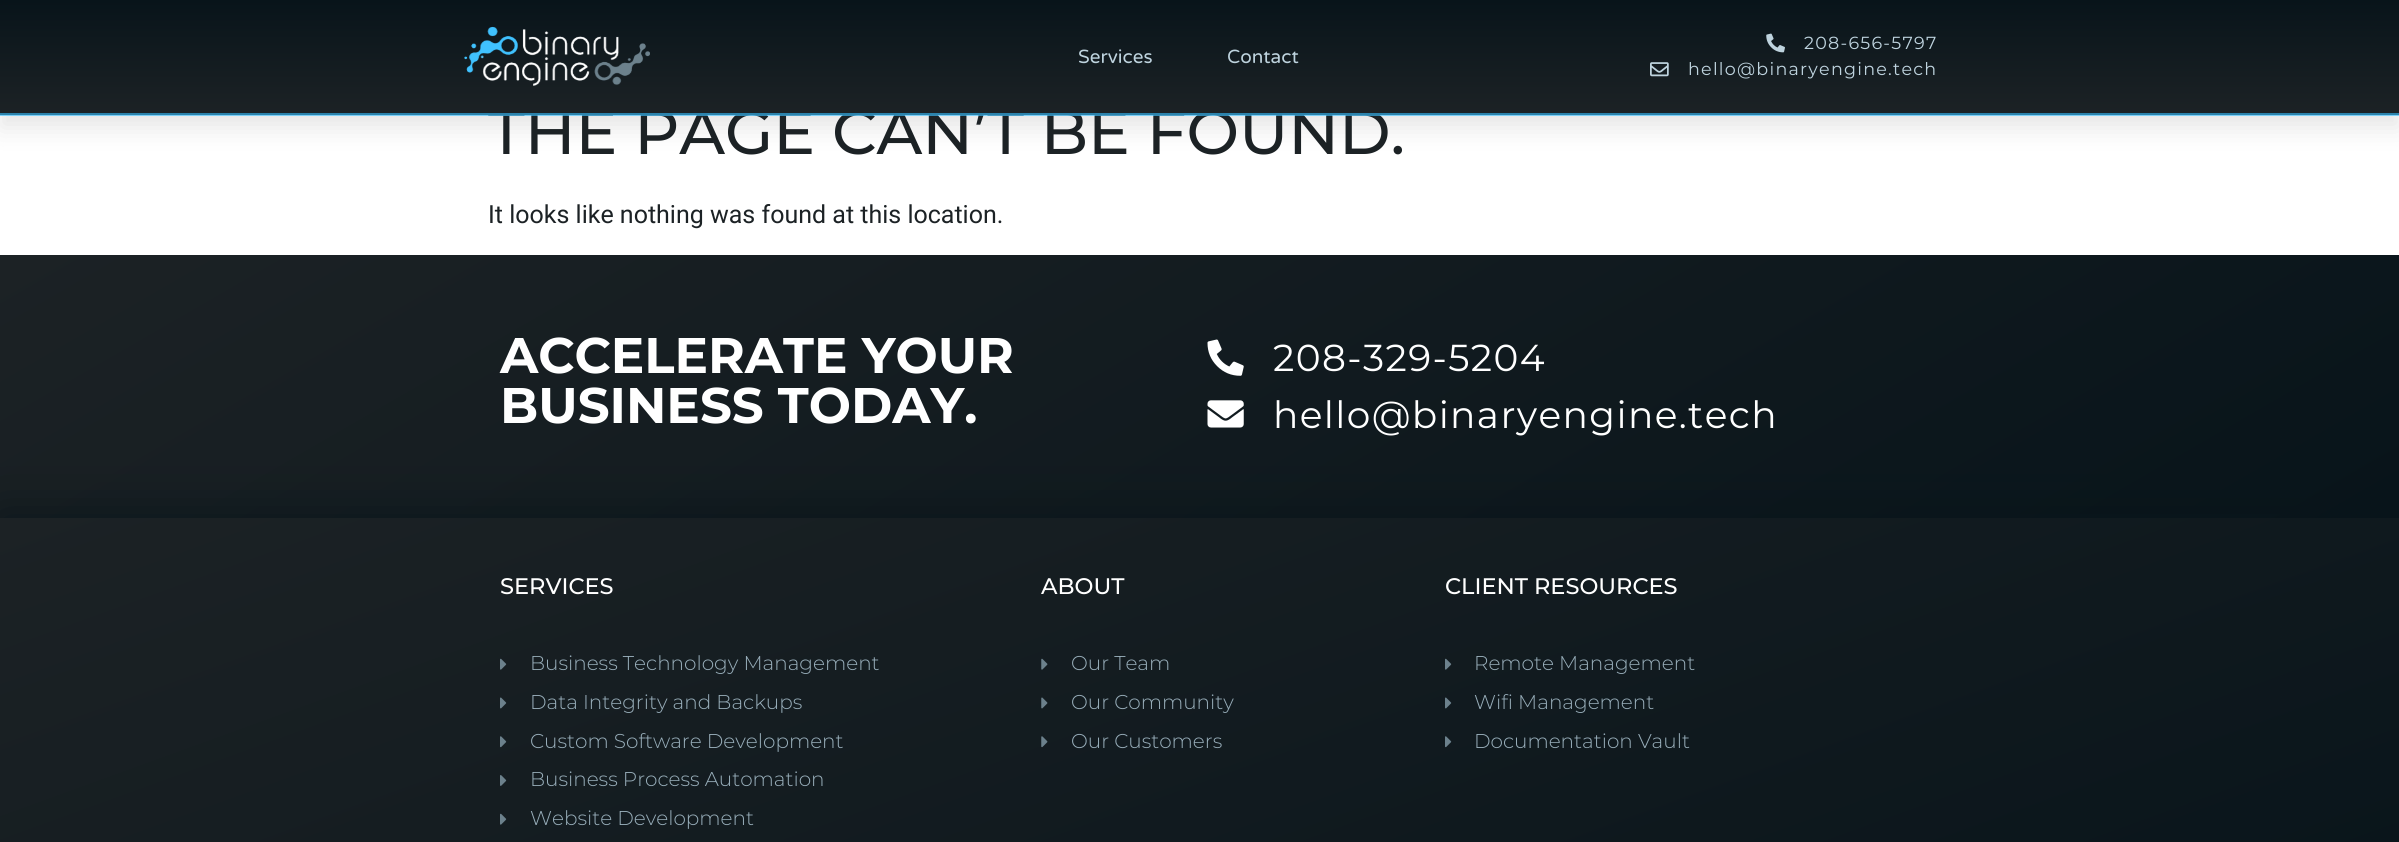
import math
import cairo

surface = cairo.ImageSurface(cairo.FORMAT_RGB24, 2399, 842)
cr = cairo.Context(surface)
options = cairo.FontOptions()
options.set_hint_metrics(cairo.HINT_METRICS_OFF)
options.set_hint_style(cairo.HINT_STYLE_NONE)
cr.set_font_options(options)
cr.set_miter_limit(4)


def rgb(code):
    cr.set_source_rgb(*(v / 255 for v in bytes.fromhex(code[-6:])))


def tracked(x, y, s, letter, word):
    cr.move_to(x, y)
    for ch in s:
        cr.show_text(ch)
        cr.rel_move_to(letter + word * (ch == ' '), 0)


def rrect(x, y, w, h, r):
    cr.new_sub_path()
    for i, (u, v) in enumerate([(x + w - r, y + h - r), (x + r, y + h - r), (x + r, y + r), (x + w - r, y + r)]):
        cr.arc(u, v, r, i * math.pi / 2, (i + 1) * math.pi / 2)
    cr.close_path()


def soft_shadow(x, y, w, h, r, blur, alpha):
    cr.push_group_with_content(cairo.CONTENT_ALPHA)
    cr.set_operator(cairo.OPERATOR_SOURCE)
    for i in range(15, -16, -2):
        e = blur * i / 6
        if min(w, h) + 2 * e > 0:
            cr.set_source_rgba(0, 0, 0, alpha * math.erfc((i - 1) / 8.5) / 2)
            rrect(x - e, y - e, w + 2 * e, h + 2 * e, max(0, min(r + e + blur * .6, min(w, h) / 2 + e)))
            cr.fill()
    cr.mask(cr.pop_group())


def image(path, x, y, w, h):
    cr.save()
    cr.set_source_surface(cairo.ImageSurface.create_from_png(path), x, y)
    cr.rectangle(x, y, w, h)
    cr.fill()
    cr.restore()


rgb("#ffffff")
cr.paint()
rgb("#000000")
soft_shadow(0, 13, 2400, 115, 0, 12.5, 0.1)
gradient = cairo.LinearGradient(843, -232, 1557, 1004)
gradient.add_color_stop_rgba(0, 0.11, 0.133, 0.145, 1)
gradient.add_color_stop_rgba(1, 0.031, 0.078, 0.102, 1)
cr.set_source(gradient)
cr.rectangle(0, 255, 2399, 263)
cr.fill()
image("img/4.png", 1207, 339, 37, 37)
image("img/5.png", 1207, 400, 37, 28)
rgb("#08141a")
soft_shadow(0, 518, 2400, 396, 0, 24, 0.98)
gradient = cairo.LinearGradient(987, 158, 1413, 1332)
gradient.add_color_stop_rgba(0, 0.11, 0.133, 0.145, 1)
gradient.add_color_stop_rgba(1, 0.031, 0.078, 0.102, 1)
cr.set_source(gradient)
cr.rectangle(0, 518, 2399, 324)
cr.fill()
image("img/6.png", 500, 658, 7, 12)
image("img/7.png", 500, 697, 7, 12)
image("img/8.png", 500, 736, 7, 12)
image("img/9.png", 500, 775, 7, 11)
image("img/10.png", 500, 813, 7, 12)
image("img/11.png", 1041, 658, 7, 12)
image("img/12.png", 1041, 697, 7, 12)
image("img/13.png", 1041, 736, 7, 12)
image("img/14.png", 1445, 658, 7, 12)
image("img/15.png", 1445, 697, 7, 12)
image("img/16.png", 1445, 736, 7, 12)
cr.select_font_face("Montserrat Medium")
cr.set_font_size(62.5)
rgb("#1c2225")
cr.move_to(488, 154)
cr.show_text("THE PAGE CAN’T BE FOUND.")
gradient = cairo.LinearGradient(1200, 113, 1200, 0)
gradient.add_color_stop_rgba(0, 0.11, 0.133, 0.145, 1)
gradient.add_color_stop_rgba(1, 0.031, 0.078, 0.102, 1)
cr.set_source(gradient)
cr.rectangle(0, 0, 2399, 113)
cr.fill()
cr.select_font_face("Varela Round")
cr.set_font_size(19)
rgb("#bed3de")
cr.move_to(1227, 63)
cr.show_text("Contact")
cr.move_to(1078, 63)
cr.show_text("Services")
image("img/3.png", 1650, 62, 19, 15)
cr.select_font_face("Montserrat")
cr.set_font_size(17.5)
tracked(1688, 75, "hello@binaryengine.tech", 1.25, 0)
image("img/2.png", 1766, 33, 19, 20)
tracked(1804, 49, "208-656-5797", 1.25, 0)
image("img/1.png", 464, 26, 186, 60)
gradient = cairo.LinearGradient(1200, 225, 1200, 113)
gradient.add_color_stop_rgba(0, 0.11, 0.133, 0.145, 1)
gradient.add_color_stop_rgba(1, 0.031, 0.078, 0.102, 1)
cr.set_source(gradient)
cr.rectangle(0, 113, 2399, 2)
cr.fill()
cr.set_source_rgba(0.251, 0.761, 1, 0.64)
cr.rectangle(0, 113, 2399, 3)
cr.fill()
cr.select_font_face("Roboto")
cr.set_font_size(25)
rgb("#1c2225")
cr.move_to(488, 223)
cr.show_text("It looks like nothing was found at this location.")
cr.select_font_face("Montserrat", cairo.FONT_SLANT_NORMAL, cairo.FONT_WEIGHT_BOLD)
cr.set_font_size(50)
rgb("#ffffff")
cr.move_to(500, 373)
cr.show_text("ACCELERATE YOUR")
cr.move_to(500, 423)
cr.show_text("BUSINESS TODAY.")
cr.select_font_face("Montserrat")
cr.set_font_size(37.5)
tracked(1273, 371, "208-329-5204", 1.4, 0)
tracked(1273, 428, "hello@binaryengine.tech", 1.4, 0)
cr.select_font_face("Montserrat Medium")
cr.set_font_size(22.5)
cr.move_to(500, 594)
cr.show_text("SERVICES")
cr.select_font_face("Montserrat Light")
cr.set_font_size(20)
rgb("#98aeba")
for x, y, s in [
    (530, 670, "Business Technology Management"),
    (530, 709, "Data Integrity and Backups"),
    (530, 748, "Custom Software Development"),
    (530, 786, "Business Process Automation"),
    (530, 825, "Website Development"),
]:
    cr.move_to(x, y)
    cr.show_text(s)
cr.select_font_face("Montserrat Medium")
cr.set_font_size(22.5)
rgb("#ffffff")
cr.move_to(1041, 594)
cr.show_text("ABOUT")
cr.select_font_face("Montserrat Light")
cr.set_font_size(20)
rgb("#98aeba")
for x, y, s in [
    (1071, 670, "Our Team"),
    (1071, 709, "Our Community"),
    (1071, 748, "Our Customers"),
]:
    cr.move_to(x, y)
    cr.show_text(s)
cr.select_font_face("Montserrat Medium")
cr.set_font_size(22.5)
rgb("#ffffff")
cr.move_to(1445, 594)
cr.show_text("CLIENT RESOURCES")
cr.select_font_face("Montserrat Light")
cr.set_font_size(20)
rgb("#98aeba")
for x, y, s in [
    (1474, 670, "Remote Management"),
    (1474, 709, "Wifi Management"),
    (1474, 748, "Documentation Vault"),
]:
    cr.move_to(x, y)
    cr.show_text(s)
surface.write_to_png("page.png")
